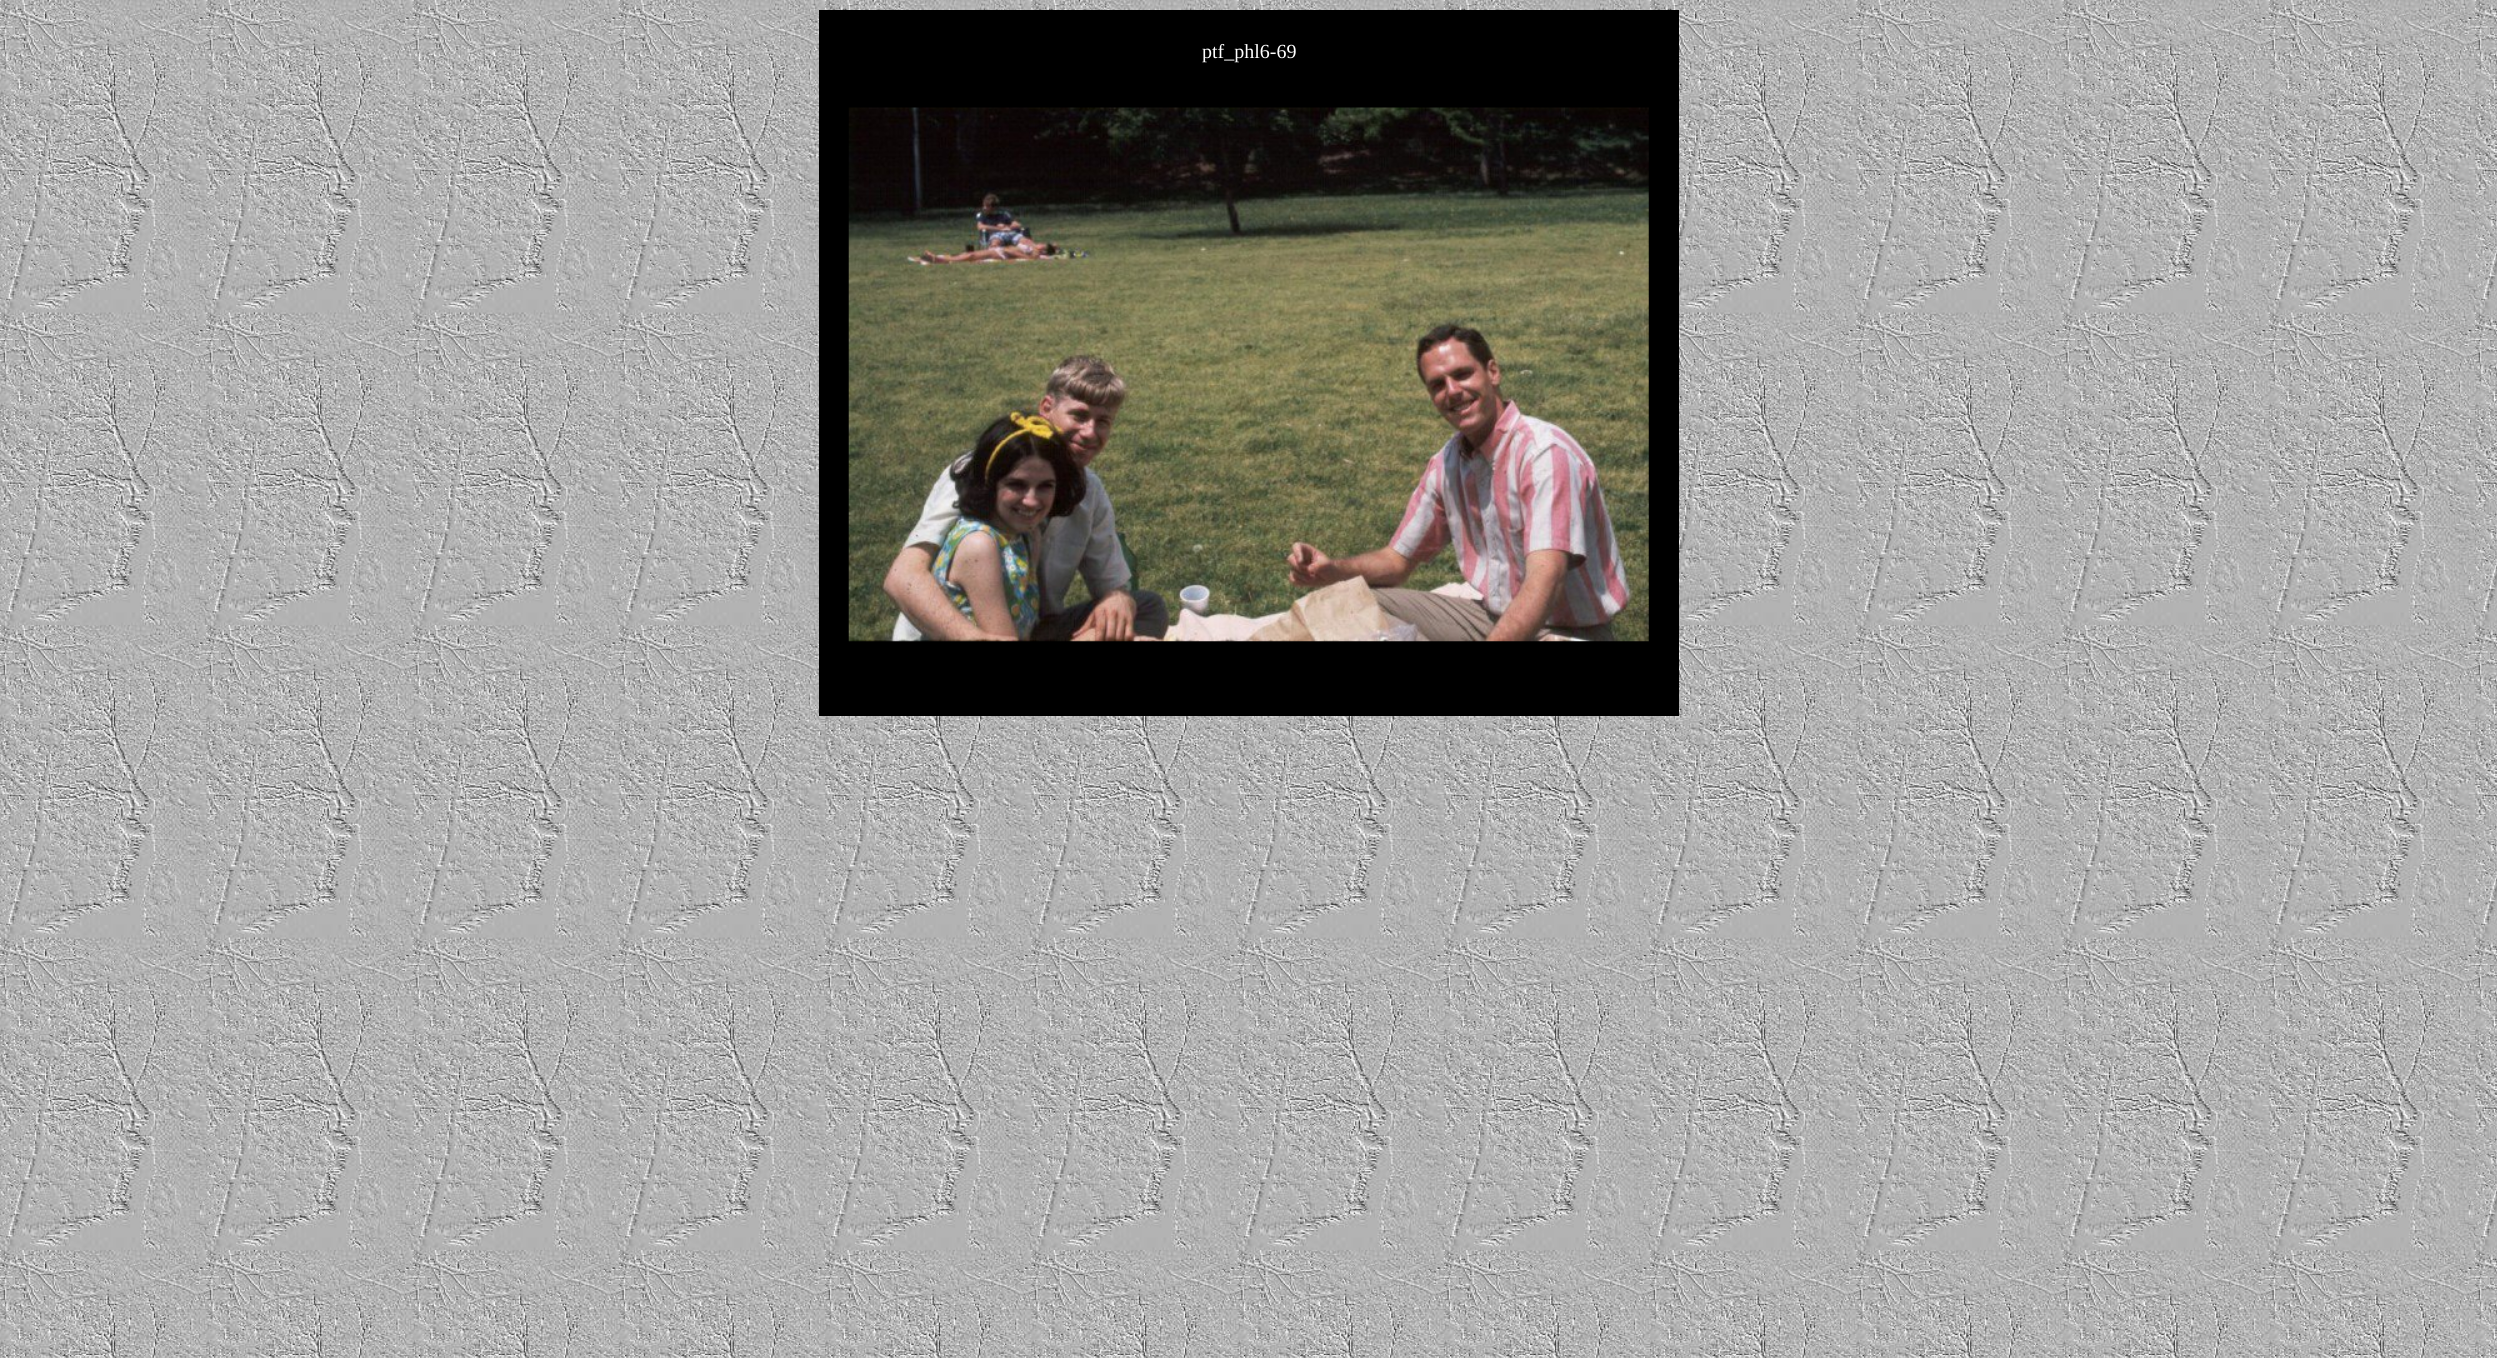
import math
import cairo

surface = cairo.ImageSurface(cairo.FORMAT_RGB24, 2497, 1358)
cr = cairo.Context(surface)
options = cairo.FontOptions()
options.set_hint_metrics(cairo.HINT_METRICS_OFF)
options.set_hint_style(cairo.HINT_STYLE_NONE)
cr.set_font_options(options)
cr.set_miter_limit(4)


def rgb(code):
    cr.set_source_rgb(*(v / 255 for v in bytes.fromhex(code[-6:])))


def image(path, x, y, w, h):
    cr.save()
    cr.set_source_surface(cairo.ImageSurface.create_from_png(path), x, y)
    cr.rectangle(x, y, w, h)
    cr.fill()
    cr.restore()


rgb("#ffffff")
cr.paint()
image("img/1.png", 0, 0, 2497, 1358)
rgb("#000000")
cr.rectangle(819, 10, 860, 706)
cr.fill()
image("img/2.png", 848, 107, 801, 535)
cr.select_font_face("Liberation Serif")
cr.set_font_size(20)
rgb("#ffffff")
cr.move_to(1202, 58)
cr.show_text("ptf_phl6-69")
surface.write_to_png("page.png")
